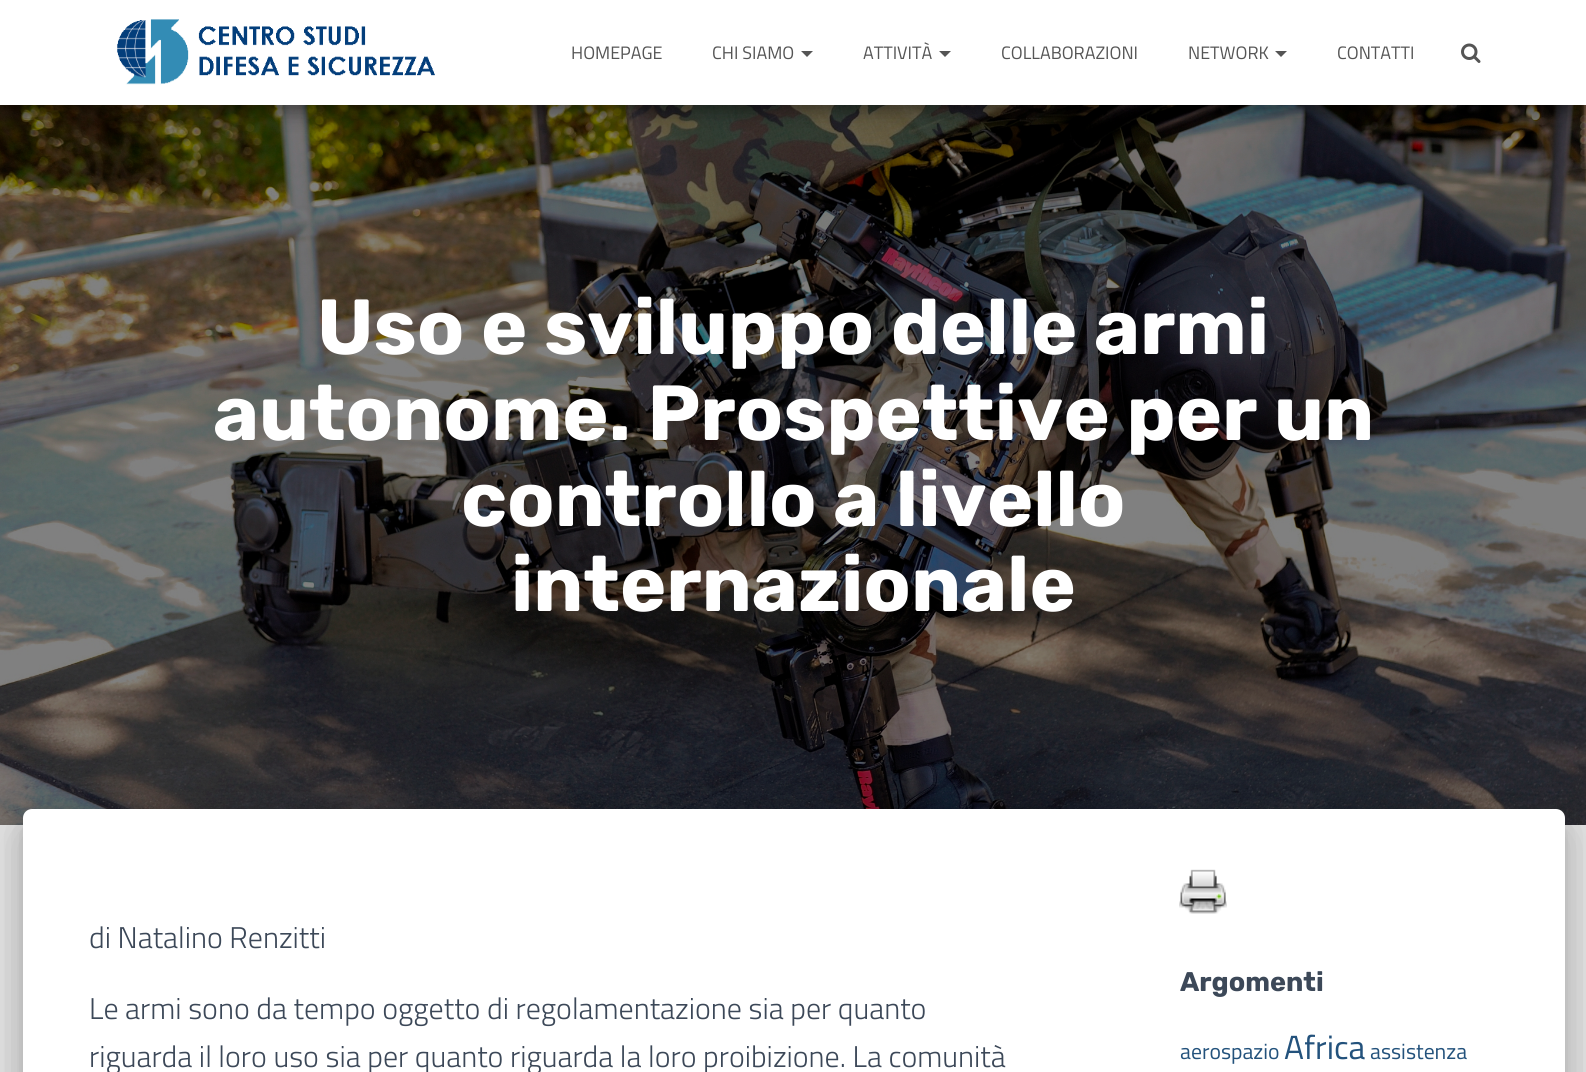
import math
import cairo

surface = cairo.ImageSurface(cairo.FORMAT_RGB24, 1586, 1072)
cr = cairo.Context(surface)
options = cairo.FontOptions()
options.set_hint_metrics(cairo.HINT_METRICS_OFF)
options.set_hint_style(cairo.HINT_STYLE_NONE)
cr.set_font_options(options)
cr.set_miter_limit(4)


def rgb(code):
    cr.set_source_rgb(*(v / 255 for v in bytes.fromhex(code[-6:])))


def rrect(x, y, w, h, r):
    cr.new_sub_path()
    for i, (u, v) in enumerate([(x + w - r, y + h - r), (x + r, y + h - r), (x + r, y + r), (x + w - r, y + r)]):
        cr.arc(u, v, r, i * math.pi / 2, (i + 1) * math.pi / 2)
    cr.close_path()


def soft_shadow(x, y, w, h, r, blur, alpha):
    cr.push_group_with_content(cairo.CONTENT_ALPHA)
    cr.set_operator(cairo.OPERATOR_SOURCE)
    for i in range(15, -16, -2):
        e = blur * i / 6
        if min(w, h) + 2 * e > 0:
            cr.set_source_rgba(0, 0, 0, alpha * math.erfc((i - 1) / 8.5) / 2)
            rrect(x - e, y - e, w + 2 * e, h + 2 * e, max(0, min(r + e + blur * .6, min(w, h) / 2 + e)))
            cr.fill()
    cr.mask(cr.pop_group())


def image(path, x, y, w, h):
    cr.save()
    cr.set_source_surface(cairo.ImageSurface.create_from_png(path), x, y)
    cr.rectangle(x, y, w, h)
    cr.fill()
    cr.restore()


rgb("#e5e5e5")
cr.paint()
image("img/3.png", 0, 105, 1586, 720)
rgb("#000000")
soft_shadow(8, 20, 1572, 90, 0, 7.5, 0.2)
soft_shadow(0, 5, 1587, 105, 0, 15, 0.12)
soft_shadow(18, 33, 1551, 69, 0, 15, 0.42)
rgb("#ffffff")
cr.rectangle(0, 0, 1586, 105)
cr.fill()
image("img/1.png", 117, 19, 318, 66)
rgb("#555555")
cr.new_path()
cr.move_to(801, 51)
cr.line_to(813, 51)
cr.line_to(807, 57)
cr.close_path()
cr.fill()
cr.new_path()
cr.move_to(939, 51)
cr.line_to(951, 51)
cr.line_to(945, 57)
cr.close_path()
cr.fill()
cr.new_path()
cr.move_to(1275, 51)
cr.line_to(1287, 51)
cr.line_to(1281, 57)
cr.close_path()
cr.fill()
image("img/2.png", 1461, 43, 20, 20)
rgb("#000000")
soft_shadow(30, 828, 1527, 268, 1.5, 7.5, 0.2)
soft_shadow(15, 810, 1557, 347, 17, 22.5, 0.12)
soft_shadow(20, 830, 1548, 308, 12, 18, 0.14)
rgb("#ffffff")
cr.new_path()
cr.move_to(32, 809)
cr.line_to(1556, 809)
cr.curve_to(1561, 809, 1565, 813, 1565, 818)
cr.line_to(1565, 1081)
cr.line_to(23, 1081)
cr.line_to(23, 818)
cr.curve_to(23, 813, 27, 809, 32, 809)
cr.close_path()
cr.fill()
image("img/4.png", 1179, 869, 48, 45)
cr.select_font_face("Titillium Web")
cr.set_font_size(18)
rgb("#555555")
for x, y, s in [
    (571, 59, "HOMEPAGE"),
    (712, 59, "CHI SIAMO"),
    (863, 59, "ATTIVITÀ"),
    (1001, 59, "COLLABORAZIONI"),
    (1188, 59, "NETWORK"),
    (1337, 59, "CONTATTI"),
]:
    cr.move_to(x, y)
    cr.show_text(s)
cr.select_font_face("Rubik", cairo.FONT_SLANT_NORMAL, cairo.FONT_WEIGHT_BOLD)
cr.set_font_size(78)
rgb("#ffffff")
for x, y, s in [
    (317, 354, "Uso e sviluppo delle armi"),
    (213, 440, "autonome. Prospettive per un"),
    (461, 526, "controllo a livello"),
    (511, 611, "internazionale"),
]:
    cr.move_to(x, y)
    cr.show_text(s)
cr.select_font_face("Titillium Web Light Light")
cr.set_font_size(30)
rgb("#3c4858")
for x, y, s in [
    (89, 948, "di Natalino Renzitti"),
    (89, 1019, "Le armi sono da tempo oggetto di regolamentazione sia per quanto"),
    (89, 1067, "riguarda il loro uso sia per quanto riguarda la loro proibizione. La comunità"),
]:
    cr.move_to(x, y)
    cr.show_text(s)
cr.select_font_face("Rubik", cairo.FONT_SLANT_NORMAL, cairo.FONT_WEIGHT_BOLD)
cr.set_font_size(27)
cr.move_to(1180, 991)
cr.show_text("Argomenti")
cr.select_font_face("Titillium Web")
cr.set_font_size(21.75)
rgb("#23527c")
cr.move_to(1180, 1059)
cr.show_text("aerospazio")
cr.set_font_size(33.5)
cr.move_to(1284, 1059)
cr.show_text("Africa")
cr.set_font_size(21.75)
cr.move_to(1370, 1059)
cr.show_text("assistenza")
surface.write_to_png("page.png")
